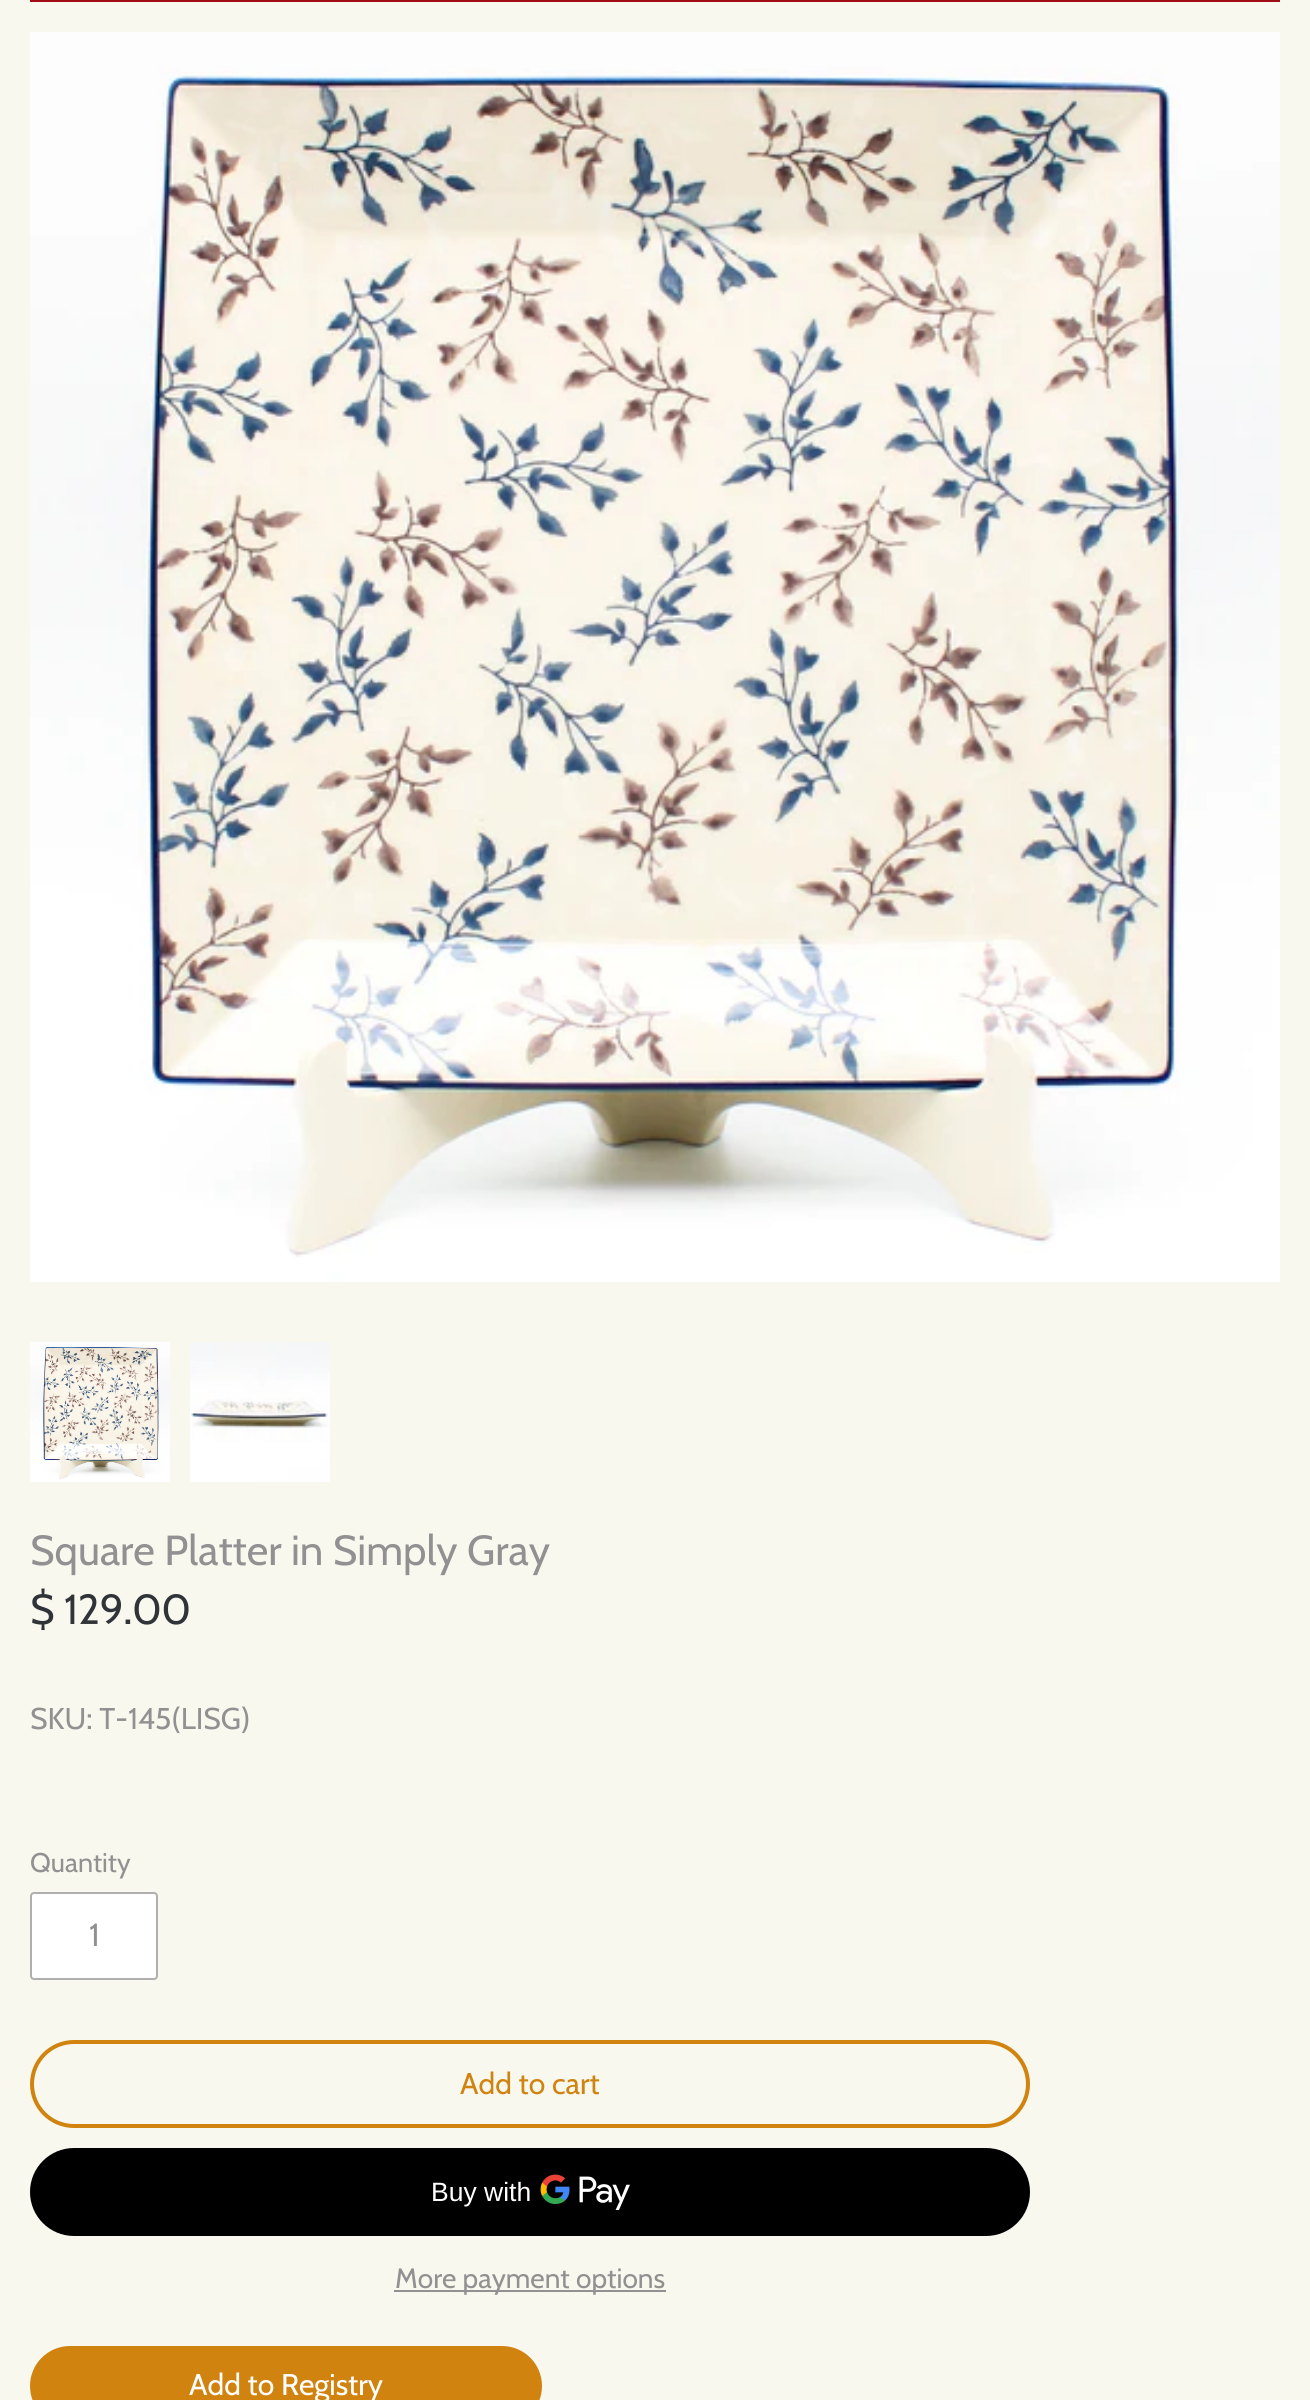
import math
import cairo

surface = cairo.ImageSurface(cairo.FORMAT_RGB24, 1310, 2400)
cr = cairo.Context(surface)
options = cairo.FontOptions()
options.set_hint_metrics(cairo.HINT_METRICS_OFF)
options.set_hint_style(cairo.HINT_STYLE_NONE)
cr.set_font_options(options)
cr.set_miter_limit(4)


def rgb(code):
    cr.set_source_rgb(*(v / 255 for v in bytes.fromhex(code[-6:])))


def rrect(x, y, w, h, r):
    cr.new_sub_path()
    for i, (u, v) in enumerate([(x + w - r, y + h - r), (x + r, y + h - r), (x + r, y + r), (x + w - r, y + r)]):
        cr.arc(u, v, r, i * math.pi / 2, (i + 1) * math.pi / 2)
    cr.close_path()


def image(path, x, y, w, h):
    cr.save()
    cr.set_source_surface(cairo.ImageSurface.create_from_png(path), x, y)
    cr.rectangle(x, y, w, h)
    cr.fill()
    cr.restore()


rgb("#f9f8ef")
cr.paint()
cr.rectangle(31, -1, 1248, 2)
rgb("#a10c16")
cr.stroke()
image("img/1.png", 30, 32, 1250, 1250)
image("img/2.png", 30, 1342, 140, 140)
image("img/3.png", 190, 1342, 140, 140)
rgb("#ffffff")
rrect(31, 1893, 126, 86, 3)
cr.fill_preserve()
rgb("#b0afad")
cr.stroke()
rrect(32, 2042, 996, 84, 42)
rgb("#d18310")
cr.set_line_width(4)
cr.stroke()
rgb("#000000")
rrect(30, 2148, 1000, 88, 44)
cr.fill()
image("img/4.png", 540, 2174, 90, 36)
rgb("#929191")
cr.rectangle(394, 2290, 272, 2)
cr.fill()
rgb("#d18310")
rrect(32, 2348, 508, 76, 38)
cr.fill_preserve()
cr.stroke()
cr.select_font_face("Cabin")
cr.set_font_size(42)
rgb("#929191")
cr.move_to(30, 1565)
cr.show_text("Square Platter in Simply Gray")
rgb("#303438")
cr.move_to(30, 1624)
cr.show_text("$ 129.00")
cr.set_font_size(30)
rgb("#929191")
cr.move_to(30, 1729)
cr.show_text("SKU: T-145(LISG)")
cr.set_font_size(27)
cr.move_to(30, 1872)
cr.show_text("Quantity")
cr.set_font_size(32)
cr.move_to(89, 1946)
cr.show_text("1")
cr.set_font_size(30)
rgb("#d18310")
cr.move_to(460, 2094)
cr.show_text("Add to cart")
cr.select_font_face("Liberation Sans")
cr.set_font_size(26.5)
rgb("#ffffff")
cr.move_to(431, 2201)
cr.show_text("Buy with")
cr.select_font_face("Cabin")
cr.set_font_size(28)
rgb("#929191")
cr.move_to(395, 2288)
cr.show_text("More payment options")
cr.set_font_size(30)
rgb("#ffffff")
cr.move_to(189, 2395)
cr.show_text("Add to Registry")
surface.write_to_png("page.png")
